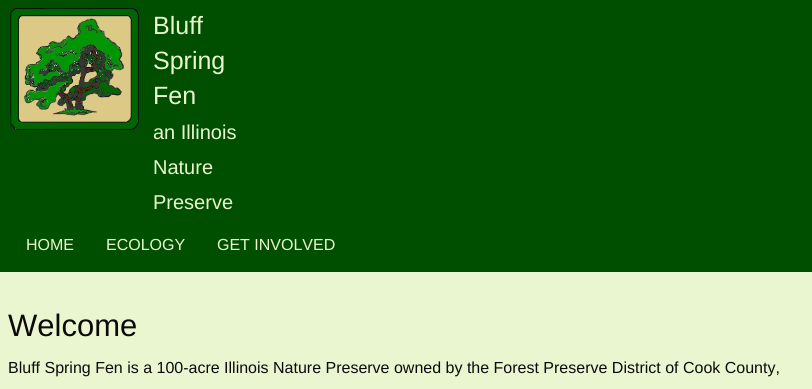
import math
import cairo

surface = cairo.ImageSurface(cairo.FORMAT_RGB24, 812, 389)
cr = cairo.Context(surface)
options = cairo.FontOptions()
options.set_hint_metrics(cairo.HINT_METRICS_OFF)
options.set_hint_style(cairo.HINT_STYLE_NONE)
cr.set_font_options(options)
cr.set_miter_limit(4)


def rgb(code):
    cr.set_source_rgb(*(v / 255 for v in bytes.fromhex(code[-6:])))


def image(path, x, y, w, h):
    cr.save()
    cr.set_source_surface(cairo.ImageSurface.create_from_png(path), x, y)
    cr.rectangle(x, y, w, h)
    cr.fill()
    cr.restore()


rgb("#eaf6d0")
cr.paint()
rgb("#004f00")
cr.rectangle(0, 0, 812, 272)
cr.fill()
image("img/1.png", 10, 8, 129, 122)
cr.select_font_face("Liberation Sans")
cr.set_font_size(25)
rgb("#eaf6d0")
for x, y, s in [
    (153, 34, "Bluff"),
    (153, 69, "Spring"),
    (153, 104, "Fen"),
]:
    cr.move_to(x, y)
    cr.show_text(s)
cr.set_font_size(20)
for x, y, s in [
    (153, 139, "an Illinois"),
    (153, 174, "Nature"),
    (153, 209, "Preserve"),
]:
    cr.move_to(x, y)
    cr.show_text(s)
cr.set_font_size(16)
for x, y, s in [
    (26, 250, "HOME"),
    (106, 250, "ECOLOGY"),
    (217, 250, "GET INVOLVED"),
]:
    cr.move_to(x, y)
    cr.show_text(s)
cr.set_font_size(31)
rgb("#0a0a0a")
cr.move_to(8, 336)
cr.show_text("Welcome")
cr.set_font_size(16)
cr.move_to(8, 373)
cr.show_text("Bluff Spring Fen is a 100-acre Illinois Nature Preserve owned by the Forest Preserve District of Cook County,")
surface.write_to_png("page.png")
